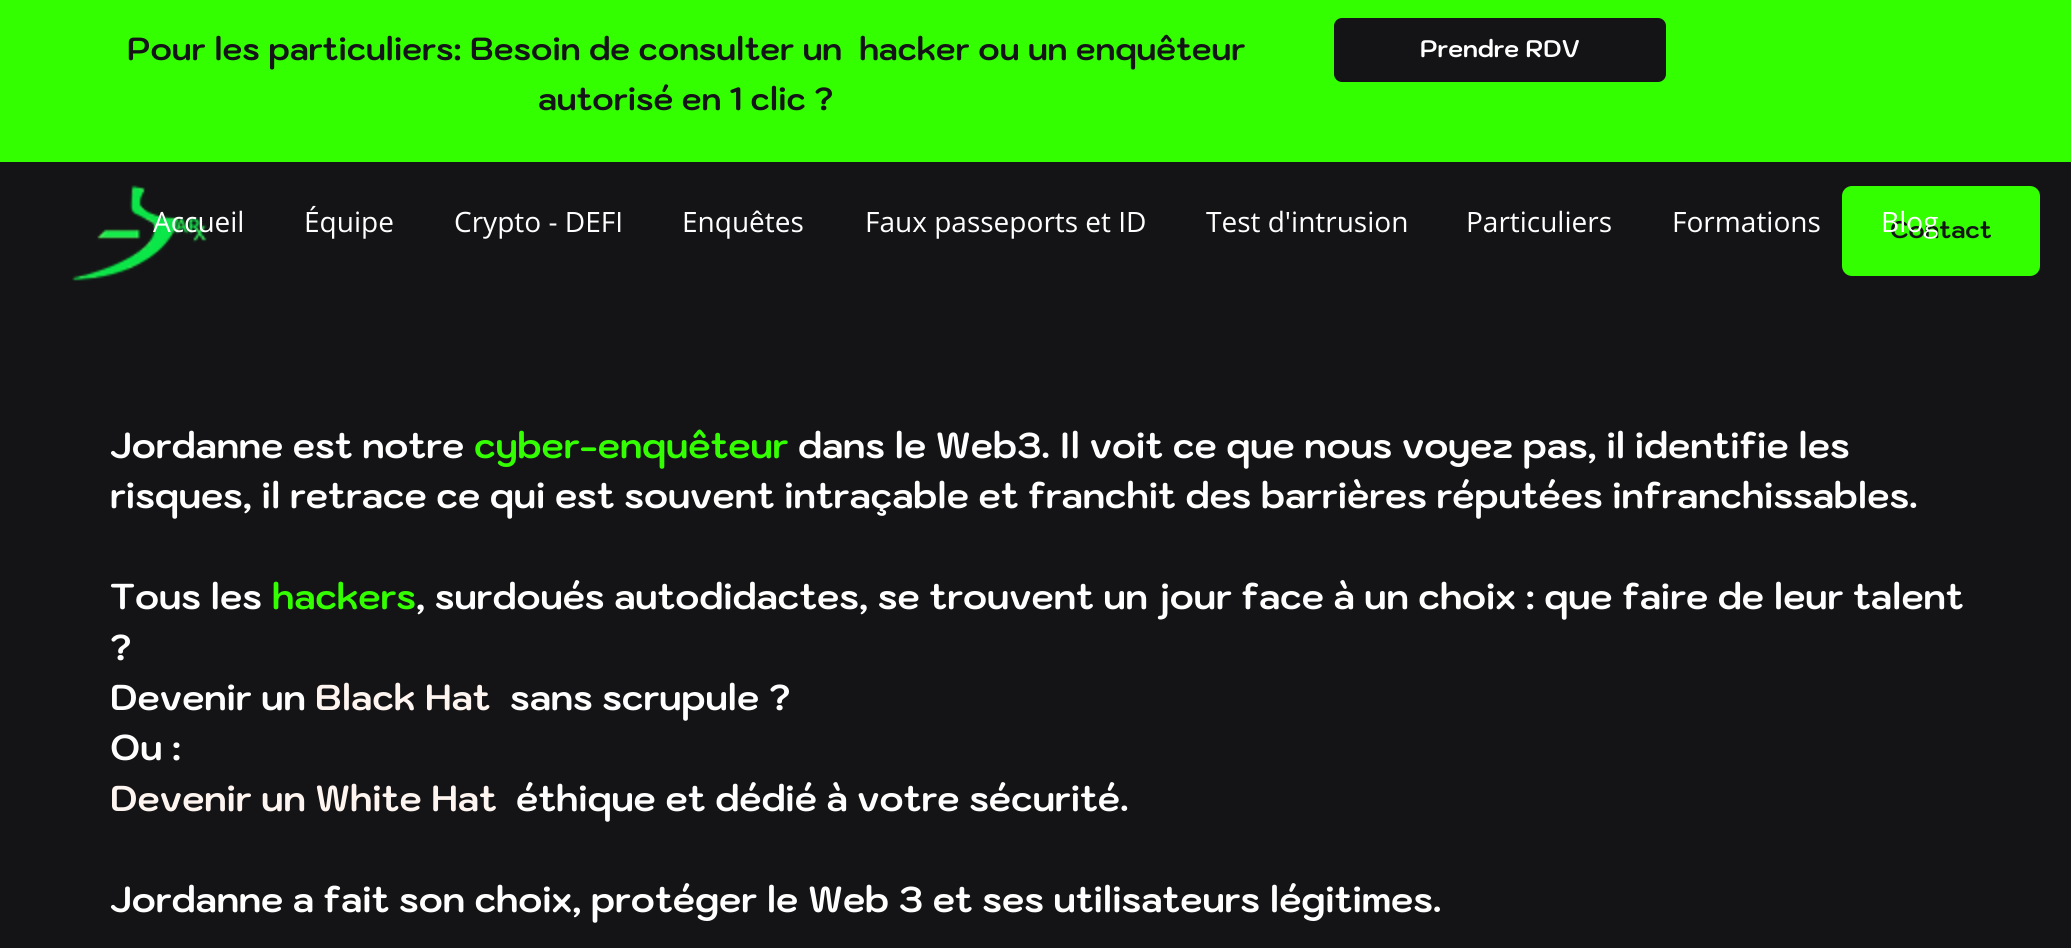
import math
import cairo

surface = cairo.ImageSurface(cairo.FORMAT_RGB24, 2071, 948)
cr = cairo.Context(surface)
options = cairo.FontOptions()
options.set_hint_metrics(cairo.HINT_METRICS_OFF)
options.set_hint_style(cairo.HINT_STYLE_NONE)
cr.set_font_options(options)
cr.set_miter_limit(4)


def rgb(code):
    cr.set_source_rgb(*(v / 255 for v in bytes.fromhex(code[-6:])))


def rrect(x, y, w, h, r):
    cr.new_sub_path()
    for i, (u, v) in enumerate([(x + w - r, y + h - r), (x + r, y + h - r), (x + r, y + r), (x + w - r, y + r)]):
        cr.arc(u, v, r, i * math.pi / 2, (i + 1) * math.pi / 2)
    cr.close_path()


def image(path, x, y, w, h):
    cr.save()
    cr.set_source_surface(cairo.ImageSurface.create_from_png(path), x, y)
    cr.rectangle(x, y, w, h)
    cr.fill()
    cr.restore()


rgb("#141416")
cr.paint()
rgb("#33ff00")
cr.rectangle(0, 0, 2071, 162)
cr.fill()
rgb("#141416")
rrect(1333, 17, 334, 66, 9)
cr.fill_preserve()
rgb("#33ff00")
cr.stroke()
image("img/1.png", 72, 185, 135, 96)
rrect(1843, 187, 196, 88, 9)
cr.fill_preserve()
cr.stroke()
cr.select_font_face("Kodchasan", cairo.FONT_SLANT_NORMAL, cairo.FONT_WEIGHT_BOLD)
cr.set_font_size(32)
rgb("#141416")
cr.move_to(127, 60)
cr.show_text("Pour les particuliers: Besoin de consulter un  hacker ou un enquêteur")
cr.move_to(538, 110)
cr.show_text("autorisé en 1 clic ?")
cr.set_font_size(24)
rgb("#ffffff")
cr.move_to(1420, 57)
cr.show_text("Prendre RDV")
cr.select_font_face("Open Sans")
cr.set_font_size(28)
for x, y, s in [
    (153, 232, "Accueil"),
    (304, 232, "Équipe"),
    (454, 232, "Crypto - DEFI"),
    (682, 232, "Enquêtes"),
    (865, 232, "Faux passeports et ID"),
    (1206, 232, "Test d'intrusion"),
    (1466, 232, "Particuliers"),
    (1672, 232, "Formations"),
]:
    cr.move_to(x, y)
    cr.show_text(s)
cr.select_font_face("Kodchasan", cairo.FONT_SLANT_NORMAL, cairo.FONT_WEIGHT_BOLD)
cr.set_font_size(24)
rgb("#141416")
cr.move_to(1890, 238)
cr.show_text("Contact")
cr.select_font_face("Open Sans")
cr.set_font_size(28)
rgb("#ffffff")
cr.move_to(1881, 232)
cr.show_text("Blog")
cr.select_font_face("Kodchasan", cairo.FONT_SLANT_NORMAL, cairo.FONT_WEIGHT_BOLD)
cr.set_font_size(36)
cr.move_to(110, 458)
cr.show_text("Jordanne est notre")
rgb("#33ff00")
cr.move_to(474, 458)
cr.show_text("cyber-enquêteur")
rgb("#ffffff")
for x, y, s in [
    (798, 458, "dans le Web3. Il voit ce que nous voyez pas, il identifie les"),
    (110, 508, "risques, il retrace ce qui est souvent intraçable et franchit des barrières réputées infranchissables."),
    (110, 609, "Tous les"),
]:
    cr.move_to(x, y)
    cr.show_text(s)
rgb("#33ff00")
cr.move_to(272, 609)
cr.show_text("hackers")
rgb("#ffffff")
for x, y, s in [
    (416, 609, ", surdoués autodidactes, se trouvent un jour face à un choix : que faire de leur talent"),
    (110, 660, "?"),
    (110, 710, "Devenir un"),
]:
    cr.move_to(x, y)
    cr.show_text(s)
rgb("#fff5f0")
cr.move_to(315, 710)
cr.show_text("Black Hat")
rgb("#ffffff")
cr.move_to(510, 710)
cr.show_text("sans scrupule ?")
cr.move_to(110, 760)
cr.show_text("Ou :")
rgb("#fff5f0")
cr.move_to(110, 811)
cr.show_text("Devenir un White Hat")
rgb("#ffffff")
cr.move_to(516, 811)
cr.show_text("éthique et dédié à votre sécurité.")
cr.move_to(110, 912)
cr.show_text("Jordanne a fait son choix, protéger le Web 3 et ses utilisateurs légitimes.")
surface.write_to_png("page.png")
